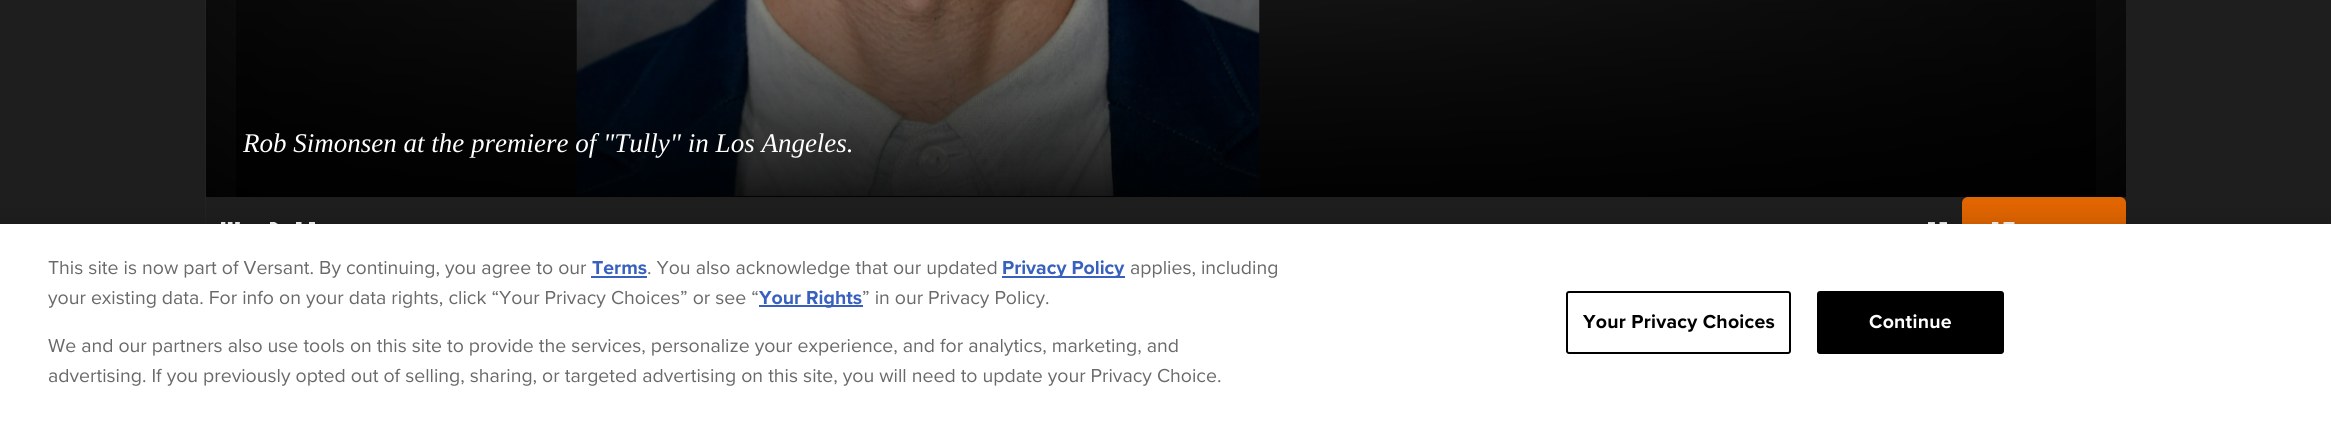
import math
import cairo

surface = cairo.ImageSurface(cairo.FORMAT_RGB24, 2331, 424)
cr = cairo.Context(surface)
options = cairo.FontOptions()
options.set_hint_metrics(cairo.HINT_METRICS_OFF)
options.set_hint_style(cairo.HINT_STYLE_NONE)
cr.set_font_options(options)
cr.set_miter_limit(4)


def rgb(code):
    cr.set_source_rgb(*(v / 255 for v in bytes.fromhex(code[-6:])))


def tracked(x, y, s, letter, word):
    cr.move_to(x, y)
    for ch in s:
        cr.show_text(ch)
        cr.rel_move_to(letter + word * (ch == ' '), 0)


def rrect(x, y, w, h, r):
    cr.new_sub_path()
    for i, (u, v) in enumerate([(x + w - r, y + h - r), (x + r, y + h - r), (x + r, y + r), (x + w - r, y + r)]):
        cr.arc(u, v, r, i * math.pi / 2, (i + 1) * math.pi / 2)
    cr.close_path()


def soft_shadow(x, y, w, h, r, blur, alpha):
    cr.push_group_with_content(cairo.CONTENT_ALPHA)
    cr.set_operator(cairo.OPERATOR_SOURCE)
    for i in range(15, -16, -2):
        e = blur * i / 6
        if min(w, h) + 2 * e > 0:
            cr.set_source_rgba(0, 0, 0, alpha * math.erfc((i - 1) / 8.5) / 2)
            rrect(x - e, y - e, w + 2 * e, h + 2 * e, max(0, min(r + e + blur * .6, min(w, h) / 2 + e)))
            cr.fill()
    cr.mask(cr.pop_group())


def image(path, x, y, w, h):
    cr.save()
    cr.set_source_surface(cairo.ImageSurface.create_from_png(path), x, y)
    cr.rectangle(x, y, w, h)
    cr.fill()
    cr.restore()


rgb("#1e1e1e")
cr.paint()
image("img/1.png", 205, 0, 1, 224)
gradient = cairo.RadialGradient(0, 0, 0, 0, 0, 1)
gradient.set_matrix(cairo.Matrix(1 / 1358, 0, 0, 1 / 732, -1 * 1166 / 1358, -1 * -261 / 732))
gradient.add_color_stop_rgba(0, 0.2, 0.2, 0.2, 1)
gradient.add_color_stop_rgba(1, 0, 0, 0, 1)
cr.set_source(gradient)
cr.rectangle(206, 0, 1920, 197)
cr.fill()
image("img/2.png", 576, 0, 684, 196)
gradient = cairo.LinearGradient(1166, -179, 1166, 197)
gradient.add_color_stop_rgba(0, 0, 0, 0, 0)
gradient.add_color_stop_rgba(1, 0, 0, 0, 0.9)
cr.set_source(gradient)
cr.rectangle(236, 0, 1860, 197)
cr.fill()
image("img/3.png", 221, 222, 19, 2)
cr.save()
cr.rectangle(270, 222, 20, 20)
cr.clip()
rgb("#ffffff")
cr.new_path()
cr.move_to(270, 219)
cr.line_to(270, 243.5)
cr.line_to(289.5, 231.5)
cr.close_path()
cr.fill()
cr.restore()
cr.save()
cr.rectangle(296, 222, 19, 20)
cr.clip()
rgb("#ffffff")
cr.new_path()
cr.move_to(295.5, 220.5)
cr.line_to(301.5, 220.5)
cr.line_to(301.5, 242.5)
cr.line_to(295.5, 242.5)
cr.close_path()
cr.move_to(309, 220.5)
cr.line_to(315, 220.5)
cr.line_to(315, 242.5)
cr.line_to(309, 242.5)
cr.close_path()
cr.fill()
cr.restore()
image("img/4.png", 1928, 222, 19, 2)
rgb("#e36600")
rrect(1962, 197, 164, 60, 6)
cr.fill()
image("img/5.png", 1992, 222, 23, 2)
rgb("#000000")
soft_shadow(0, 224, 2331, 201, 0, 13.5, 0.2)
for x, y, w, h, color in [
    (0, 224, 2331, 200, "#ffffff"),
    (591, 276, 56, 2, "#3860be"),
    (1002, 276, 123, 2, "#3860be"),
    (759, 305, 104, 2, "#3860be"),
]:
    rgb(color)
    cr.rectangle(x, y, w, h)
    cr.fill()
rrect(1567, 292, 223, 61, 2)
rgb("#000000")
cr.stroke()
rrect(1818, 292, 185, 61, 2)
cr.fill_preserve()
cr.stroke()
cr.select_font_face("Liberation Serif", cairo.FONT_SLANT_ITALIC)
cr.set_font_size(27)
rgb("#ffffff")
cr.move_to(243, 152)
cr.show_text("Rob Simonsen at the premiere of \"Tully\" in Los Angeles.")
cr.select_font_face("Proxima Nova")
cr.set_font_size(19.5)
rgb("#696969")
cr.move_to(48, 274)
cr.show_text("This site is now part of Versant. By continuing, you agree to our")
cr.select_font_face("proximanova", cairo.FONT_SLANT_NORMAL, cairo.FONT_WEIGHT_BOLD)
rgb("#3860be")
cr.move_to(592, 274)
cr.show_text("Terms")
cr.select_font_face("Proxima Nova")
rgb("#696969")
cr.move_to(647, 274)
cr.show_text(". You also acknowledge that our updated")
cr.select_font_face("proximanova", cairo.FONT_SLANT_NORMAL, cairo.FONT_WEIGHT_BOLD)
rgb("#3860be")
cr.move_to(1002, 274)
cr.show_text("Privacy Policy")
cr.select_font_face("Proxima Nova")
rgb("#696969")
cr.move_to(1130, 274)
cr.show_text("applies, including")
cr.move_to(48, 304)
cr.show_text("your existing data. For info on your data rights, click “Your Privacy Choices” or see “")
cr.select_font_face("proximanova", cairo.FONT_SLANT_NORMAL, cairo.FONT_WEIGHT_BOLD)
rgb("#3860be")
cr.move_to(759, 304)
cr.show_text("Your Rights")
cr.select_font_face("Proxima Nova")
rgb("#696969")
for x, y, s in [
    (862, 304, "” in our Privacy Policy."),
    (48, 352, "We and our partners also use tools on this site to provide the services, personalize your experience, and for analytics, marketing, and"),
    (48, 382, "advertising. If you previously opted out of selling, sharing, or targeted advertising on this site, you will need to update your Privacy Choice."),
]:
    cr.move_to(x, y)
    cr.show_text(s)
cr.select_font_face("proximanova", cairo.FONT_SLANT_NORMAL, cairo.FONT_WEIGHT_BOLD)
rgb("#000000")
tracked(1583, 328, "Your Privacy Choices", 0.25, 0)
rgb("#ffffff")
tracked(1869, 328, "Continue", 0.25, 0)
surface.write_to_png("page.png")
